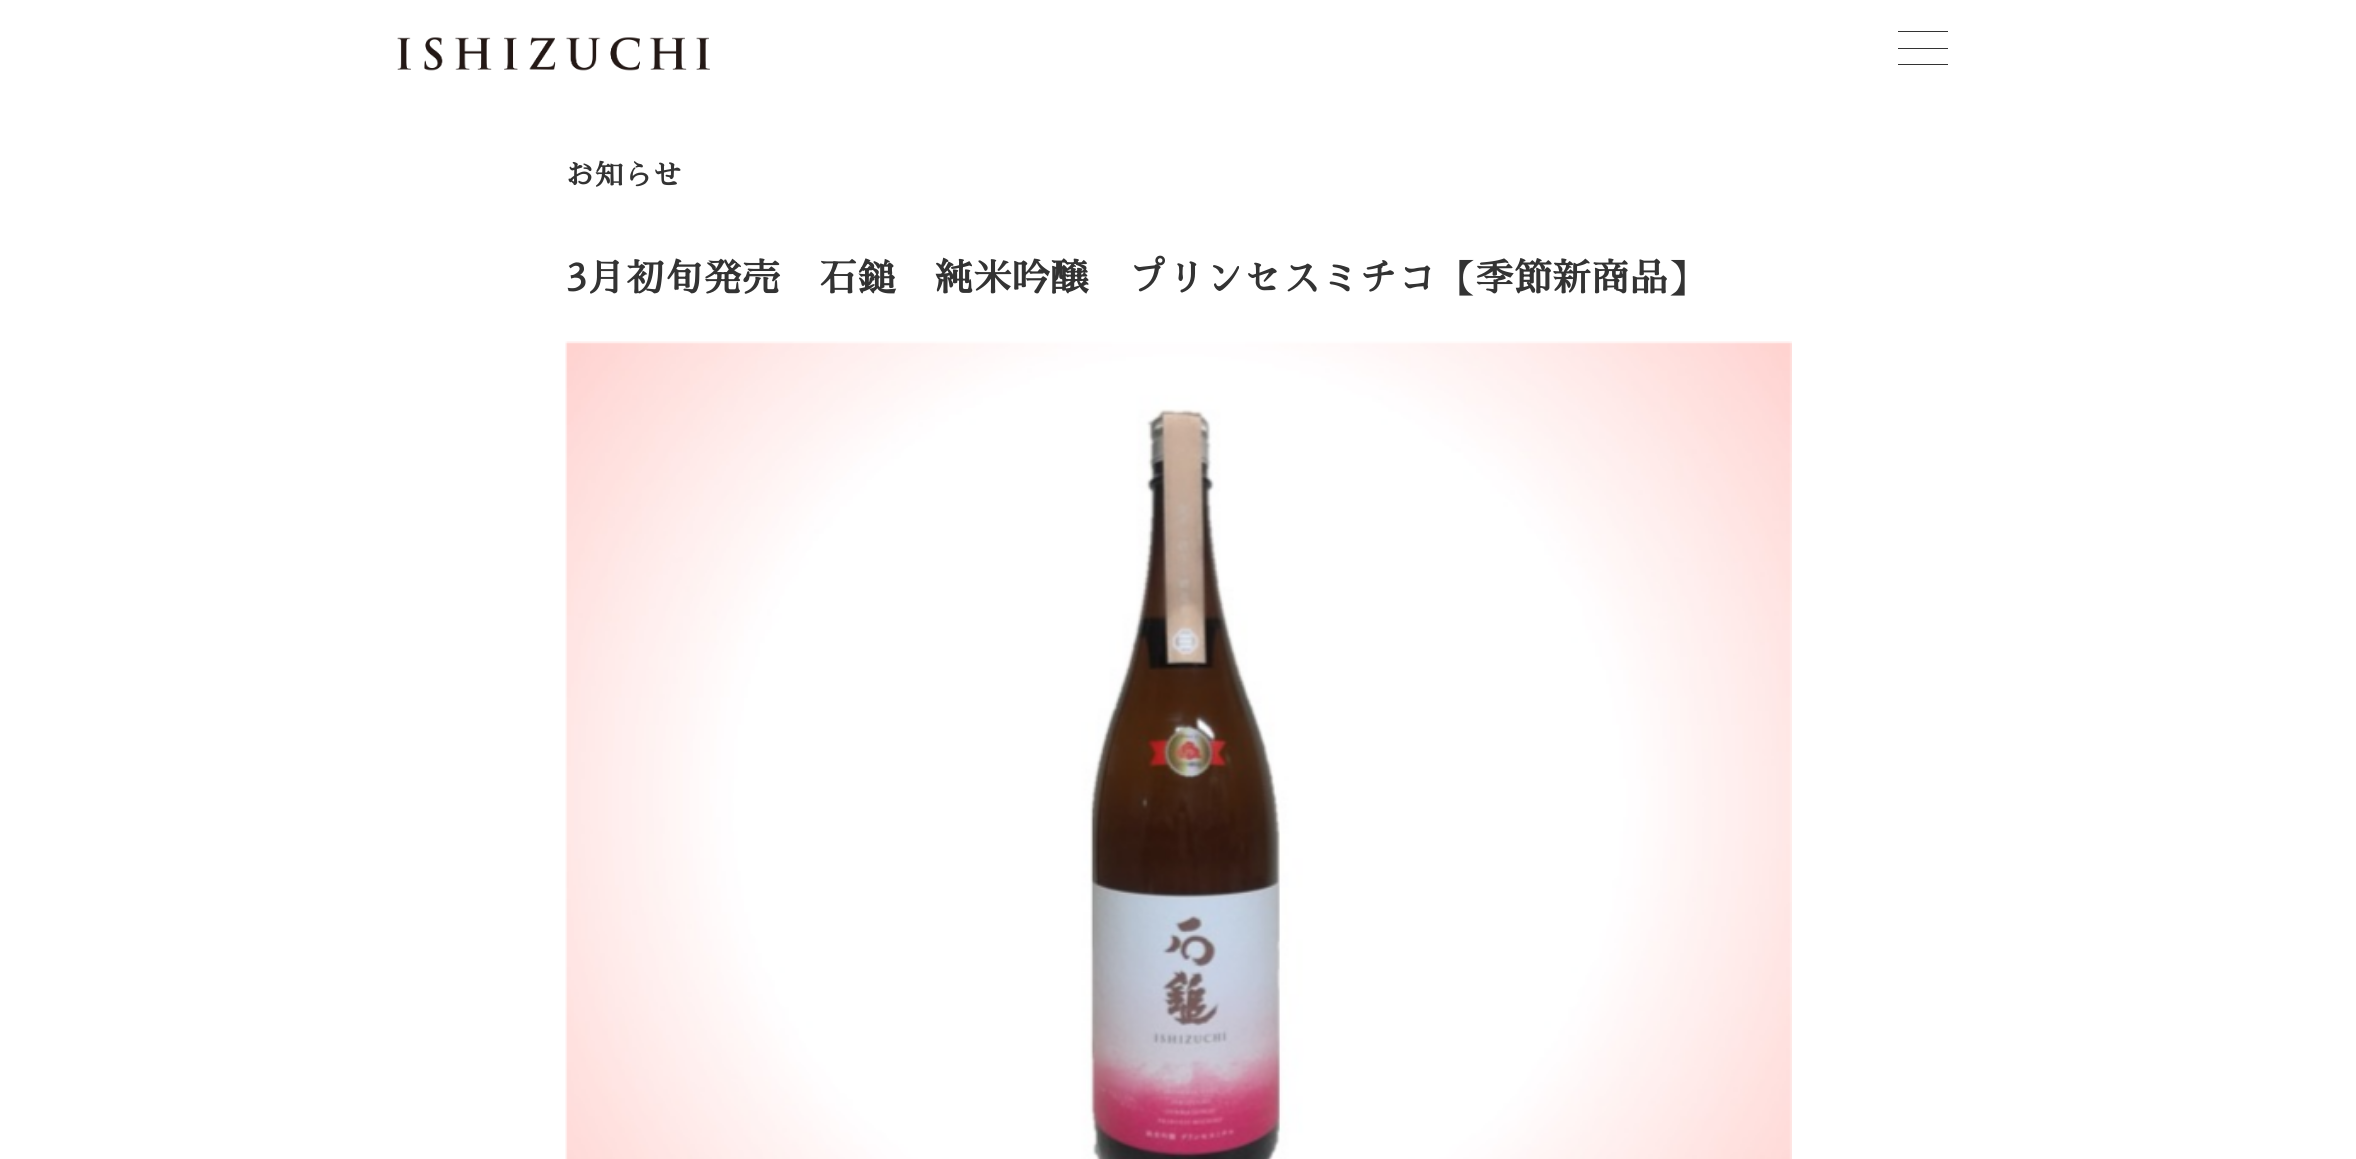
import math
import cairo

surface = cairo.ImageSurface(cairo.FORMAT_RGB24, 2356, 1159)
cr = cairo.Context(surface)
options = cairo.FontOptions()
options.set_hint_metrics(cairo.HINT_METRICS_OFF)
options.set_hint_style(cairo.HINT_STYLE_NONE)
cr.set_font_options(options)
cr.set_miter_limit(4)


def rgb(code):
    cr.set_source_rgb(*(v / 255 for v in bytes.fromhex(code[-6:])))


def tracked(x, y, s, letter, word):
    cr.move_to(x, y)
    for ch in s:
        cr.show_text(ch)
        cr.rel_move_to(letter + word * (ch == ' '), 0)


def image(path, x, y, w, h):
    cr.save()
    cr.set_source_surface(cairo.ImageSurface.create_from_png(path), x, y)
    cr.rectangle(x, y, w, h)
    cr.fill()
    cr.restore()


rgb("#ffffff")
cr.paint()
image("img/1.png", 397, 37, 313, 34)
for x, y, w, h, color in [
    (1898, 31, 50, 1, "#333333"),
    (1898, 48, 50, 1, "#333333"),
    (1898, 64, 50, 1, "#333333"),
]:
    rgb(color)
    cr.rectangle(x, y, w, h)
    cr.fill()
image("img/2.png", 565, 341, 1227, 818)
cr.select_font_face("Sawarabi Mincho", cairo.FONT_SLANT_NORMAL, cairo.FONT_WEIGHT_BOLD)
cr.set_font_size(28)
tracked(566, 185, "お知らせ", 1.1, 0)
cr.set_font_size(37.5)
tracked(566, 291, "3月初旬発売　石鎚　純米吟醸　プリンセスミチコ【季節新商品】", 1.1, 0)
surface.write_to_png("page.png")
